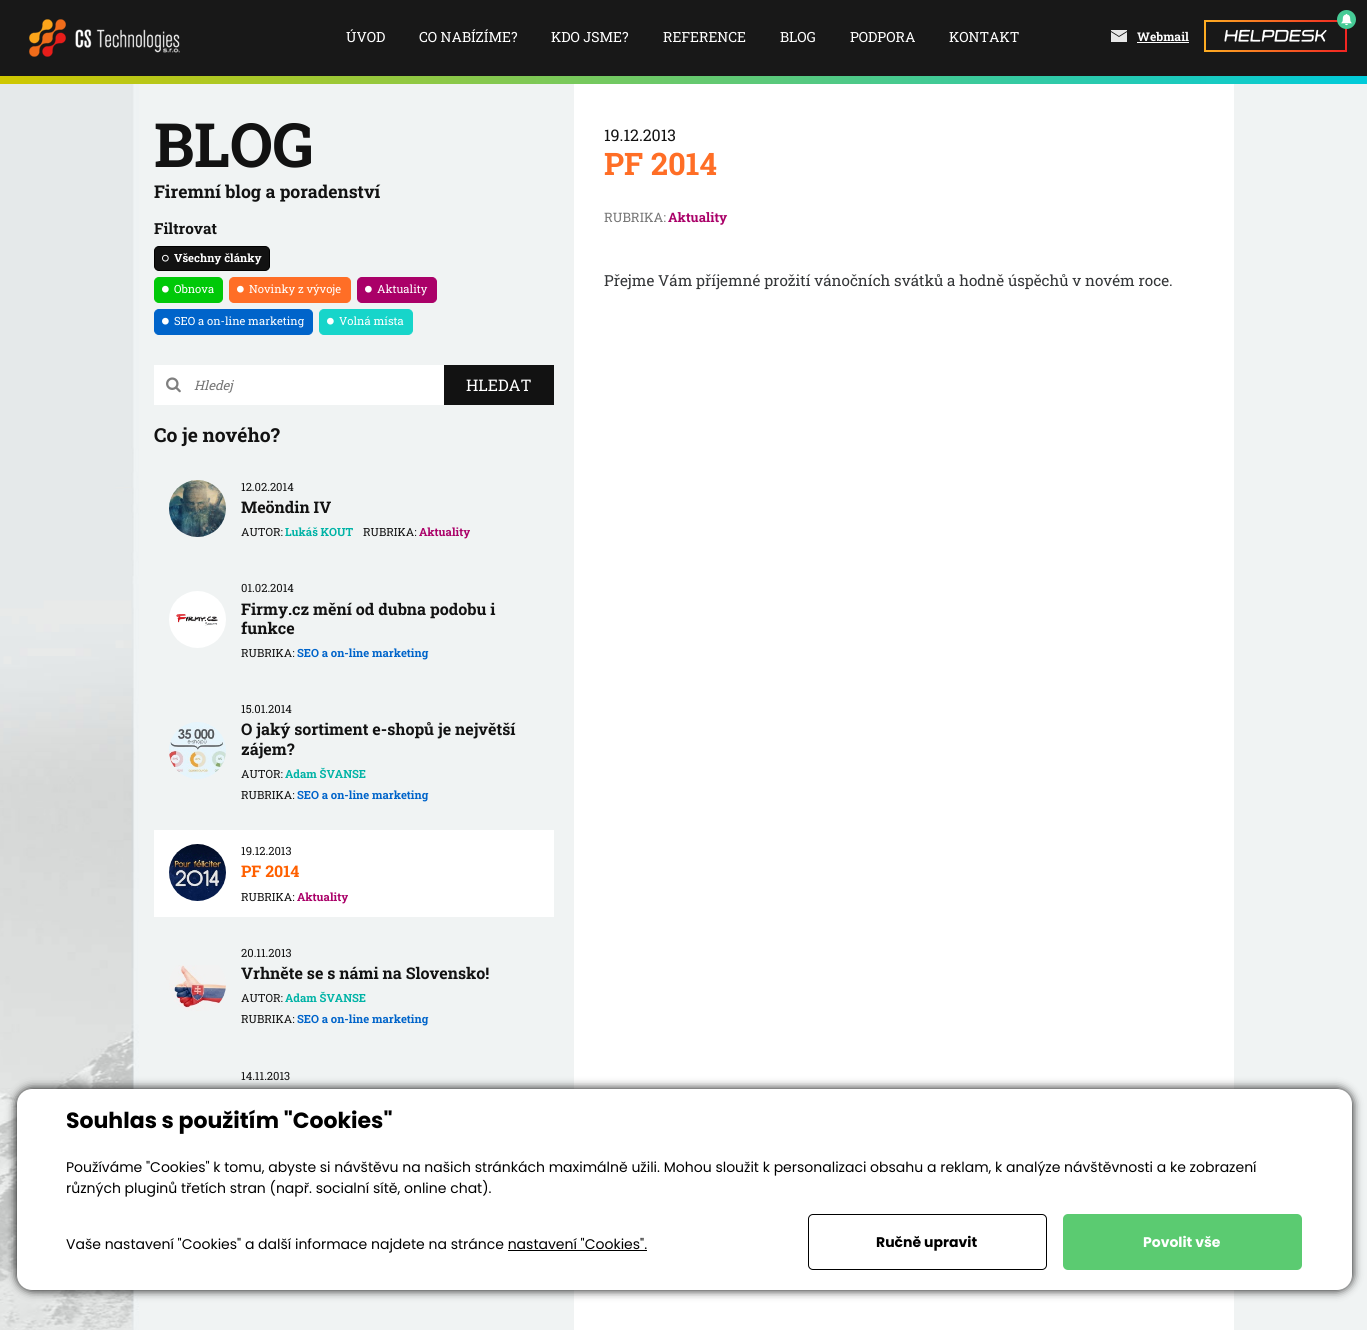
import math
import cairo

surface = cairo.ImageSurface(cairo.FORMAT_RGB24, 1367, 1330)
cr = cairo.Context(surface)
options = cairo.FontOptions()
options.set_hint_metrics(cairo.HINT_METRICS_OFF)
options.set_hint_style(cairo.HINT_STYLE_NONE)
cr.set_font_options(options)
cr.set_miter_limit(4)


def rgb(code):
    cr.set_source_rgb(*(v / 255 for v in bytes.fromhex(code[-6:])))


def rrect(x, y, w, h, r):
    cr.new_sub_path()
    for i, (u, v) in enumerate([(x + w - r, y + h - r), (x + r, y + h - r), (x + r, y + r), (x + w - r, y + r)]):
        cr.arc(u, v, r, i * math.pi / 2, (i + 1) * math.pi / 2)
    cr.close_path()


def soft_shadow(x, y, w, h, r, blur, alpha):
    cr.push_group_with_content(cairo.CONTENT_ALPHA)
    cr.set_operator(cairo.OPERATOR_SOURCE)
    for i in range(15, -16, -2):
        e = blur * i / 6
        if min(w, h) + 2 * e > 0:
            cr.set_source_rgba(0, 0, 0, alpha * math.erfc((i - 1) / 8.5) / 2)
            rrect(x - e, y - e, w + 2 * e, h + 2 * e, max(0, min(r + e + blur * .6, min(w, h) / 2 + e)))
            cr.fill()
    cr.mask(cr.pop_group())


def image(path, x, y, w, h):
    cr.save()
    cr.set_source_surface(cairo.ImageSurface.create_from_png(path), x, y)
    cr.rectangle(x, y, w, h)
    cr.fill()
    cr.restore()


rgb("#f0f3f3")
cr.paint()
rgb("#181818")
cr.rectangle(0, 0, 1367, 76)
cr.fill()
image("img/1.png", 29, 19, 151, 38)
image("img/2.png", 1111, 30, 16, 12)
rgb("#ffffff")
cr.rectangle(1137, 42, 52, 1)
cr.fill()
image("img/4.png", 1204, 20, 143, 32)
rgb("#46cb96")
cr.arc(1346.5, 19.5, 9.5, 0, 2 * math.pi)
cr.fill()
image("img/3.png", 1341, 13, 11, 13)
image("img/5.png", 1224, 29, 103, 13)
gradient = cairo.LinearGradient(0, 80, 1367, 80)
gradient.add_color_stop_rgba(0, 0.812, 0.78, 0, 1)
gradient.add_color_stop_rgba(1, 0, 0.796, 0.855, 1)
cr.set_source(gradient)
cr.rectangle(0, 76, 1367, 8)
cr.fill()
image("img/6.png", 0, 84, 139, 1246)
rgb("#121212")
rrect(154.5, 246.5, 115, 24, 4.5)
cr.fill_preserve()
rgb("#000000")
cr.set_line_width(1)
cr.stroke()
image("img/7.png", 162, 254, 7, 8)
rgb("#00c908")
rrect(154.5, 277.5, 68, 25, 4.5)
cr.fill_preserve()
cr.stroke()
image("img/8.png", 162, 285, 7, 8)
rgb("#ff6e26")
rrect(229.5, 277.5, 121, 25, 4.5)
cr.fill_preserve()
cr.stroke()
image("img/9.png", 237, 285, 7, 8)
rgb("#aa0068")
rrect(357.5, 277.5, 79, 25, 4.5)
cr.fill_preserve()
cr.stroke()
image("img/10.png", 365, 285, 7, 8)
rgb("#0064ca")
rrect(154.5, 309.5, 158, 25, 4.5)
cr.fill_preserve()
cr.stroke()
image("img/11.png", 162, 317, 7, 8)
rgb("#17d5ca")
rrect(319.5, 309.5, 93, 25, 4.5)
cr.fill_preserve()
cr.stroke()
image("img/12.png", 327, 317, 7, 8)
rgb("#ffffff")
cr.rectangle(154, 365, 290, 40)
cr.fill()
image("img/13.png", 166, 377, 15, 16)
rgb("#121212")
cr.rectangle(444, 365, 110, 40)
cr.fill()
image("img/14.png", 169, 480, 57, 57)
image("img/15.png", 169, 591, 57, 57)
image("img/16.png", 169, 722, 57, 57)
rgb("#ffffff")
cr.rectangle(154, 830, 400, 87)
cr.fill()
image("img/17.png", 169, 844, 57, 57)
image("img/18.png", 169, 965, 57, 46)
cr.rectangle(574, 84, 660, 1246)
cr.fill()
rgb("#000000")
soft_shadow(17, 1089, 1335, 201, 15, 5, 1)
rgb("#ffffff")
rrect(17, 1089, 1335, 201, 15)
cr.fill()
rgb("#000000")
cr.rectangle(508, 1250, 139, 1)
cr.fill()
rrect(808.5, 1214.5, 238, 55, 4.5)
cr.stroke()
rgb("#5bcb71")
rrect(1063, 1214, 239, 56, 5)
cr.fill()
cr.select_font_face("Roboto Slab")
cr.set_font_size(14)
rgb("#ffffff")
for x, y, s in [
    (346, 42, "ÚVOD"),
    (419, 42, "CO NABÍZÍME?"),
    (551, 42, "KDO JSME?"),
    (663, 42, "REFERENCE"),
    (780, 42, "BLOG"),
    (850, 42, "PODPORA"),
    (949, 42, "KONTAKT"),
]:
    cr.move_to(x, y)
    cr.show_text(s)
cr.select_font_face("Roboto Slab", cairo.FONT_SLANT_NORMAL, cairo.FONT_WEIGHT_BOLD)
cr.set_font_size(12)
cr.move_to(1137, 41)
cr.show_text("Webmail")
cr.set_font_size(61)
rgb("#121212")
cr.move_to(154, 167)
cr.show_text("BLOG")
cr.set_font_size(17.6)
cr.move_to(154, 198)
cr.show_text("Firemní blog a poradenství")
cr.set_font_size(15.2)
cr.move_to(154, 234)
cr.show_text("Filtrovat")
cr.set_font_size(11.25)
rgb("#ffffff")
cr.move_to(174, 262)
cr.show_text("Všechny články")
cr.select_font_face("Roboto Slab")
for x, y, s in [
    (174, 293, "Obnova"),
    (249, 293, "Novinky z vývoje"),
    (377, 293, "Aktuality"),
    (174, 325, "SEO a on-line marketing"),
    (339, 325, "Volná místa"),
]:
    cr.move_to(x, y)
    cr.show_text(s)
cr.select_font_face("Roboto Slab", cairo.FONT_SLANT_ITALIC)
cr.set_font_size(13)
rgb("#767676")
cr.move_to(194, 390)
cr.show_text("Hledej")
cr.select_font_face("Roboto Slab")
cr.set_font_size(16)
rgb("#ffffff")
cr.move_to(466, 391)
cr.show_text("HLEDAT")
cr.select_font_face("Roboto Slab", cairo.FONT_SLANT_NORMAL, cairo.FONT_WEIGHT_BOLD)
cr.set_font_size(19.25)
rgb("#121212")
cr.move_to(154, 442)
cr.show_text("Co je nového?")
cr.select_font_face("Roboto Slab")
cr.set_font_size(11.25)
cr.move_to(241, 491)
cr.show_text("12.02.2014")
cr.select_font_face("Roboto Slab", cairo.FONT_SLANT_NORMAL, cairo.FONT_WEIGHT_BOLD)
cr.set_font_size(16)
cr.move_to(241, 513)
cr.show_text("Meöndin IV")
cr.select_font_face("Roboto Slab")
cr.set_font_size(11.25)
cr.move_to(241, 536)
cr.show_text("AUTOR:")
cr.select_font_face("Roboto Slab", cairo.FONT_SLANT_NORMAL, cairo.FONT_WEIGHT_BOLD)
rgb("#00b3a6")
cr.move_to(285, 536)
cr.show_text("Lukáš KOUT")
cr.select_font_face("Roboto Slab")
rgb("#121212")
cr.move_to(363, 536)
cr.show_text("RUBRIKA:")
cr.select_font_face("Roboto Slab", cairo.FONT_SLANT_NORMAL, cairo.FONT_WEIGHT_BOLD)
rgb("#aa0068")
cr.move_to(419, 536)
cr.show_text("Aktuality")
cr.select_font_face("Roboto Slab")
rgb("#121212")
cr.move_to(241, 592)
cr.show_text("01.02.2014")
cr.select_font_face("Roboto Slab", cairo.FONT_SLANT_NORMAL, cairo.FONT_WEIGHT_BOLD)
cr.set_font_size(16)
cr.move_to(241, 615)
cr.show_text("Firmy.cz mění od dubna podobu i")
cr.move_to(241, 634)
cr.show_text("funkce")
cr.select_font_face("Roboto Slab")
cr.set_font_size(11.25)
cr.move_to(241, 657)
cr.show_text("RUBRIKA:")
cr.select_font_face("Roboto Slab", cairo.FONT_SLANT_NORMAL, cairo.FONT_WEIGHT_BOLD)
rgb("#0064ca")
cr.move_to(297, 657)
cr.show_text("SEO a on-line marketing")
cr.select_font_face("Roboto Slab")
rgb("#121212")
cr.move_to(241, 713)
cr.show_text("15.01.2014")
cr.select_font_face("Roboto Slab", cairo.FONT_SLANT_NORMAL, cairo.FONT_WEIGHT_BOLD)
cr.set_font_size(16)
cr.move_to(241, 735)
cr.show_text("O jaký sortiment e-shopů je největší")
cr.move_to(241, 755)
cr.show_text("zájem?")
cr.select_font_face("Roboto Slab")
cr.set_font_size(11.25)
cr.move_to(241, 778)
cr.show_text("AUTOR:")
cr.select_font_face("Roboto Slab", cairo.FONT_SLANT_NORMAL, cairo.FONT_WEIGHT_BOLD)
rgb("#00b3a6")
cr.move_to(285, 778)
cr.show_text("Adam ŠVANSE")
cr.select_font_face("Roboto Slab")
rgb("#121212")
cr.move_to(241, 799)
cr.show_text("RUBRIKA:")
cr.select_font_face("Roboto Slab", cairo.FONT_SLANT_NORMAL, cairo.FONT_WEIGHT_BOLD)
rgb("#0064ca")
cr.move_to(297, 799)
cr.show_text("SEO a on-line marketing")
cr.select_font_face("Roboto Slab")
rgb("#121212")
cr.move_to(241, 855)
cr.show_text("19.12.2013")
cr.select_font_face("Roboto Slab", cairo.FONT_SLANT_NORMAL, cairo.FONT_WEIGHT_BOLD)
cr.set_font_size(16)
rgb("#ff6000")
cr.move_to(241, 877)
cr.show_text("PF 2014")
cr.select_font_face("Roboto Slab")
cr.set_font_size(11.25)
rgb("#121212")
cr.move_to(241, 901)
cr.show_text("RUBRIKA:")
cr.select_font_face("Roboto Slab", cairo.FONT_SLANT_NORMAL, cairo.FONT_WEIGHT_BOLD)
rgb("#aa0068")
cr.move_to(297, 901)
cr.show_text("Aktuality")
cr.select_font_face("Roboto Slab")
rgb("#121212")
cr.move_to(241, 957)
cr.show_text("20.11.2013")
cr.select_font_face("Roboto Slab", cairo.FONT_SLANT_NORMAL, cairo.FONT_WEIGHT_BOLD)
cr.set_font_size(16)
cr.move_to(241, 979)
cr.show_text("Vrhněte se s námi na Slovensko!")
cr.select_font_face("Roboto Slab")
cr.set_font_size(11.25)
cr.move_to(241, 1002)
cr.show_text("AUTOR:")
cr.select_font_face("Roboto Slab", cairo.FONT_SLANT_NORMAL, cairo.FONT_WEIGHT_BOLD)
rgb("#00b3a6")
cr.move_to(285, 1002)
cr.show_text("Adam ŠVANSE")
cr.select_font_face("Roboto Slab")
rgb("#121212")
cr.move_to(241, 1023)
cr.show_text("RUBRIKA:")
cr.select_font_face("Roboto Slab", cairo.FONT_SLANT_NORMAL, cairo.FONT_WEIGHT_BOLD)
rgb("#0064ca")
cr.move_to(297, 1023)
cr.show_text("SEO a on-line marketing")
cr.select_font_face("Roboto Slab")
rgb("#121212")
cr.move_to(241, 1080)
cr.show_text("14.11.2013")
cr.set_font_size(16)
cr.move_to(604, 141)
cr.show_text("19.12.2013")
cr.select_font_face("Roboto Slab", cairo.FONT_SLANT_NORMAL, cairo.FONT_WEIGHT_BOLD)
cr.set_font_size(31)
rgb("#ff6e26")
cr.move_to(604, 175)
cr.show_text("PF 2014")
cr.select_font_face("Roboto Slab")
cr.set_font_size(13)
rgb("#767676")
cr.move_to(604, 222)
cr.show_text("RUBRIKA:")
cr.select_font_face("Roboto Slab", cairo.FONT_SLANT_NORMAL, cairo.FONT_WEIGHT_BOLD)
rgb("#aa0068")
cr.move_to(668, 222)
cr.show_text("Aktuality")
cr.select_font_face("Roboto Slab")
cr.set_font_size(15.2)
rgb("#343638")
cr.move_to(604, 286)
cr.show_text("Přejme Vám příjemné prožití vánočních svátků a hodně úspěchů v novém roce.")
cr.select_font_face("Poppins", cairo.FONT_SLANT_NORMAL, cairo.FONT_WEIGHT_BOLD)
cr.set_font_size(22)
rgb("#000000")
cr.move_to(66, 1128)
cr.show_text("Souhlas s použitím \"Cookies\"")
cr.select_font_face("Poppins")
cr.set_font_size(14)
for x, y, s in [
    (66, 1172, "Používáme \"Cookies\" k tomu, abyste si návštěvu na našich stránkách maximálně užili. Mohou sloužit k personalizaci obsahu a reklam, k analýze návštěvnosti a ke zobrazení"),
    (66, 1193, "různých pluginů třetích stran (např. socialní sítě, online chat)."),
    (66, 1249, "Vaše nastavení \"Cookies\" a další informace najdete na stránce nastavení \"Cookies\"."),
]:
    cr.move_to(x, y)
    cr.show_text(s)
cr.select_font_face("Poppins", cairo.FONT_SLANT_NORMAL, cairo.FONT_WEIGHT_BOLD)
cr.move_to(876, 1247)
cr.show_text("Ručně upravit")
rgb("#ffffff")
cr.move_to(1143, 1247)
cr.show_text("Povolit vše")
surface.write_to_png("page.png")
